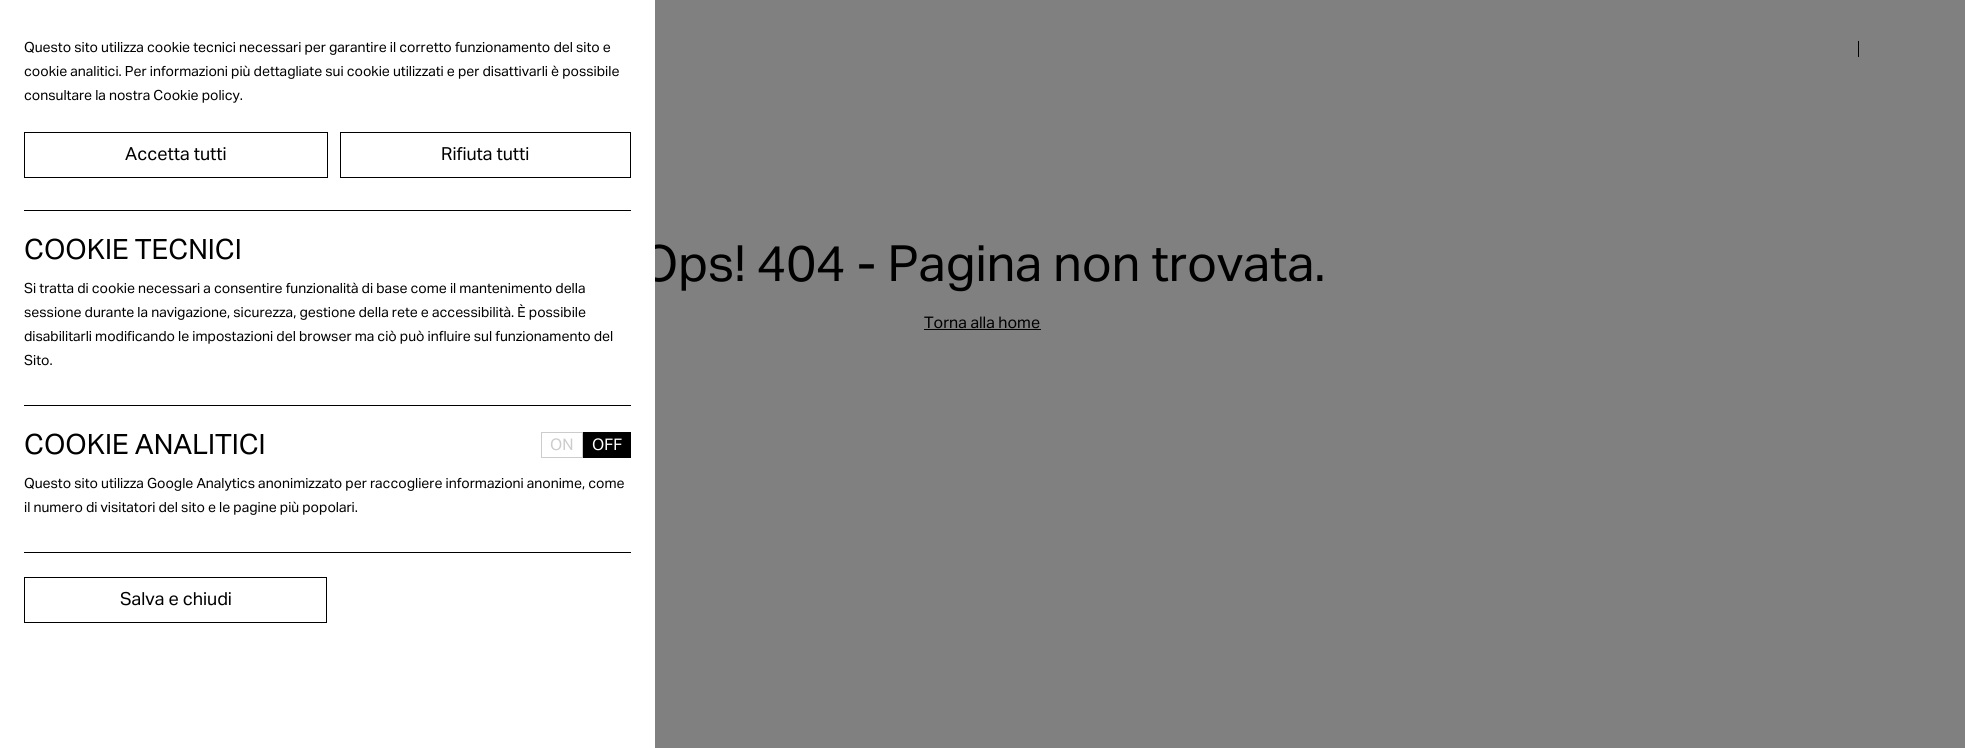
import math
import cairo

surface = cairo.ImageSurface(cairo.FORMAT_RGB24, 1965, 748)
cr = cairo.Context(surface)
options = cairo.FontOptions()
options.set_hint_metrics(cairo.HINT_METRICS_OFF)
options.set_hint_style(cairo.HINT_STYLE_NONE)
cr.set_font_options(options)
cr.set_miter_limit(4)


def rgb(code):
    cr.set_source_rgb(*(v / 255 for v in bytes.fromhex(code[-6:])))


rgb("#808080")
cr.paint()
rgb("#000000")
cr.rectangle(1858, 41, 1, 16)
cr.fill()
cr.rectangle(924, 329, 117, 1)
cr.fill()
cr.select_font_face("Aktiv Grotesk")
cr.set_font_size(50)
cr.move_to(640, 281)
cr.show_text("Ops! 404 - Pagina non trovata.")
rgb("#ffffff")
cr.rectangle(0, 0, 655, 748)
cr.fill()
cr.rectangle(541.5, 432.5, 41, 25)
rgb("#cccccc")
cr.set_line_width(1)
cr.stroke()
cr.set_font_size(16)
cr.move_to(550, 450)
cr.show_text("ON")
for x, y, w, h, color in [
    (24, 552, 607, 1, "#000000"),
    (24, 405, 607, 1, "#000000"),
    (24, 210, 607, 1, "#000000"),
]:
    rgb(color)
    cr.rectangle(x, y, w, h)
    cr.fill()
cr.rectangle(24.5, 577.5, 302, 45)
cr.stroke()
cr.set_font_size(18)
cr.move_to(120, 605)
cr.show_text("Salva e chiudi")
cr.set_font_size(14)
cr.move_to(24, 512)
cr.show_text("il numero di visitatori del sito e le pagine più popolari.")
cr.move_to(24, 488)
cr.show_text("Questo sito utilizza Google Analytics anonimizzato per raccogliere informazioni anonime, come")
cr.rectangle(583, 432, 48, 26)
cr.fill()
cr.set_font_size(16)
rgb("#ffffff")
cr.move_to(592, 450)
cr.show_text("OFF")
cr.set_font_size(28)
rgb("#000000")
cr.move_to(24, 454)
cr.show_text("COOKIE ANALITICI")
cr.set_font_size(14)
for x, y, s in [
    (24, 365, "Sito."),
    (24, 341, "disabilitarli modificando le impostazioni del browser ma ciò può influire sul funzionamento del"),
    (24, 317, "sessione durante la navigazione, sicurezza, gestione della rete e accessibilità. È possibile"),
    (24, 293, "Si tratta di cookie necessari a consentire funzionalità di base come il mantenimento della"),
]:
    cr.move_to(x, y)
    cr.show_text(s)
cr.set_font_size(28)
cr.move_to(24, 259)
cr.show_text("COOKIE TECNICI")
cr.rectangle(340.5, 132.5, 290, 45)
cr.stroke()
cr.set_font_size(18)
cr.move_to(441, 160)
cr.show_text("Rifiuta tutti")
cr.rectangle(24.5, 132.5, 303, 45)
cr.stroke()
cr.move_to(125, 160)
cr.show_text("Accetta tutti")
cr.set_font_size(14)
for x, y, s in [
    (24, 100, "consultare la nostra Cookie policy."),
    (24, 76, "cookie analitici. Per informazioni più dettagliate sui cookie utilizzati e per disattivarli è possibile"),
    (24, 52, "Questo sito utilizza cookie tecnici necessari per garantire il corretto funzionamento del sito e"),
]:
    cr.move_to(x, y)
    cr.show_text(s)
cr.set_font_size(16)
cr.move_to(924, 328)
cr.show_text("Torna alla home")
surface.write_to_png("page.png")
